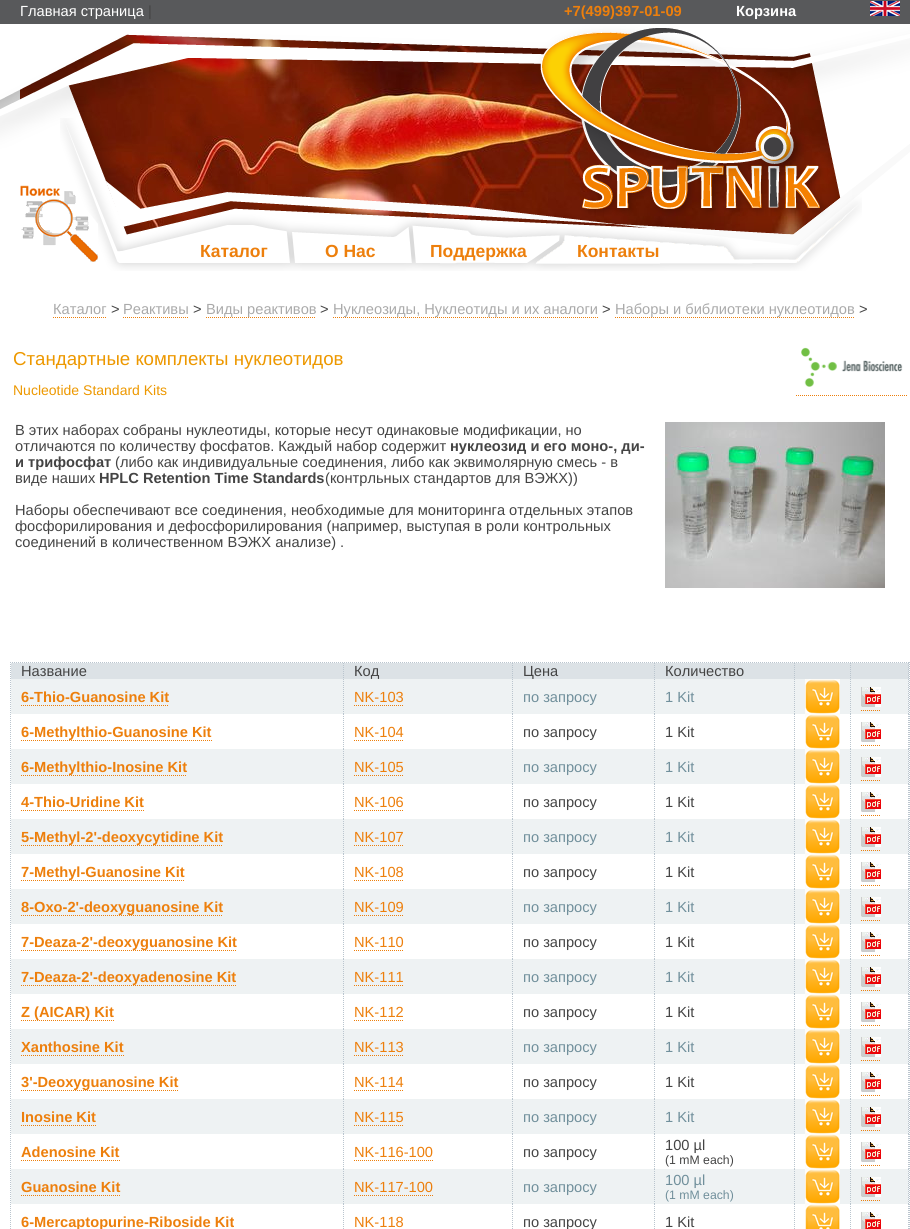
import math
import cairo

surface = cairo.ImageSurface(cairo.FORMAT_RGB24, 910, 1229)
cr = cairo.Context(surface)
options = cairo.FontOptions()
options.set_hint_metrics(cairo.HINT_METRICS_OFF)
options.set_hint_style(cairo.HINT_STYLE_NONE)
cr.set_font_options(options)
cr.set_miter_limit(4)


def rgb(code):
    cr.set_source_rgb(*(v / 255 for v in bytes.fromhex(code[-6:])))


def image(path, x, y, w, h):
    cr.save()
    cr.set_source_surface(cairo.ImageSurface.create_from_png(path), x, y)
    cr.rectangle(x, y, w, h)
    cr.fill()
    cr.restore()


rgb("#ffffff")
cr.paint()
rgb("#58595b")
cr.rectangle(0, 0, 910, 24)
cr.fill()
image("img/1.png", 870, 1, 30, 15)
image("img/3.png", 20, 34, 821, 201)
image("img/2.png", 0, 24, 910, 244)
image("img/5.png", 60, 118, 802, 153)
image("img/4.png", 20, 185, 78, 77)
cr.new_path()
cr.move_to(53, 317.5)
cr.line_to(107, 317.5)
rgb("#ed7f0c")
cr.set_line_width(1)
cr.set_dash([1, 1])
cr.stroke()
cr.new_path()
cr.move_to(123, 317.5)
cr.line_to(189, 317.5)
cr.stroke()
cr.new_path()
cr.move_to(206, 317.5)
cr.line_to(316, 317.5)
cr.stroke()
cr.new_path()
cr.move_to(333, 317.5)
cr.line_to(598, 317.5)
cr.stroke()
cr.new_path()
cr.move_to(615, 317.5)
cr.line_to(855, 317.5)
cr.stroke()
image("img/6.png", 801, 347, 102, 40)
cr.new_path()
cr.move_to(796, 395.5)
cr.line_to(907, 395.5)
cr.stroke()
image("img/7.png", 665, 422, 220, 166)
cr.new_path()
cr.move_to(10, 662.5)
cr.line_to(910, 662.5)
rgb("#bac5ce")
cr.stroke()
cr.new_path()
cr.move_to(909.5, 662)
cr.line_to(909.5, 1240)
cr.stroke()
cr.new_path()
cr.move_to(10.5, 662)
cr.line_to(10.5, 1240)
cr.stroke()
rgb("#dce2e6")
cr.rectangle(11, 663, 898, 16)
cr.fill()
cr.new_path()
cr.move_to(343.5, 663)
cr.line_to(343.5, 679)
rgb("#bac5ce")
cr.stroke()
cr.new_path()
cr.move_to(512.5, 663)
cr.line_to(512.5, 679)
cr.stroke()
cr.new_path()
cr.move_to(654.5, 663)
cr.line_to(654.5, 679)
cr.stroke()
cr.new_path()
cr.move_to(794.5, 663)
cr.line_to(794.5, 679)
cr.move_to(850.5, 663)
cr.line_to(850.5, 679)
cr.stroke()
cr.new_path()
cr.move_to(908.5, 663)
cr.line_to(908.5, 679)
cr.stroke()
rgb("#eef2f3")
cr.rectangle(11, 679, 898, 35)
cr.fill()
cr.new_path()
cr.move_to(343.5, 679)
cr.line_to(343.5, 714)
rgb("#bac5ce")
cr.stroke()
cr.new_path()
cr.move_to(21, 705.5)
cr.line_to(169, 705.5)
rgb("#ed7f0c")
cr.stroke()
cr.new_path()
cr.move_to(512.5, 679)
cr.line_to(512.5, 714)
rgb("#bac5ce")
cr.stroke()
cr.new_path()
cr.move_to(354, 705.5)
cr.line_to(403, 705.5)
rgb("#ed7f0c")
cr.stroke()
cr.new_path()
cr.move_to(654.5, 679)
cr.line_to(654.5, 714)
rgb("#bac5ce")
cr.stroke()
cr.new_path()
cr.move_to(794.5, 679)
cr.line_to(794.5, 714)
cr.move_to(850.5, 679)
cr.line_to(850.5, 714)
cr.stroke()
rgb("#ffffff")
cr.rectangle(805, 679, 35, 35)
cr.fill()
image("img/8.png", 805, 679, 35, 35)
cr.new_path()
cr.move_to(908.5, 679)
cr.line_to(908.5, 714)
rgb("#bac5ce")
cr.stroke()
image("img/9.png", 861, 687, 20, 20)
cr.new_path()
cr.move_to(861, 710.5)
cr.line_to(881, 710.5)
rgb("#ed7f0c")
cr.stroke()
cr.new_path()
cr.move_to(343.5, 714)
cr.line_to(343.5, 749)
rgb("#bac5ce")
cr.stroke()
cr.new_path()
cr.move_to(21, 740.5)
cr.line_to(212, 740.5)
rgb("#ed7f0c")
cr.stroke()
cr.new_path()
cr.move_to(512.5, 714)
cr.line_to(512.5, 749)
rgb("#bac5ce")
cr.stroke()
cr.new_path()
cr.move_to(354, 740.5)
cr.line_to(403, 740.5)
rgb("#ed7f0c")
cr.stroke()
cr.new_path()
cr.move_to(654.5, 714)
cr.line_to(654.5, 749)
rgb("#bac5ce")
cr.stroke()
cr.new_path()
cr.move_to(794.5, 714)
cr.line_to(794.5, 749)
cr.move_to(850.5, 714)
cr.line_to(850.5, 749)
cr.stroke()
image("img/8.png", 805, 714, 35, 35)
cr.new_path()
cr.move_to(908.5, 714)
cr.line_to(908.5, 749)
cr.stroke()
image("img/9.png", 861, 722, 20, 20)
cr.new_path()
cr.move_to(861, 745.5)
cr.line_to(881, 745.5)
rgb("#ed7f0c")
cr.stroke()
rgb("#eef2f3")
cr.rectangle(11, 749, 898, 35)
cr.fill()
cr.new_path()
cr.move_to(343.5, 749)
cr.line_to(343.5, 784)
rgb("#bac5ce")
cr.stroke()
cr.new_path()
cr.move_to(21, 775.5)
cr.line_to(187, 775.5)
rgb("#ed7f0c")
cr.stroke()
cr.new_path()
cr.move_to(512.5, 749)
cr.line_to(512.5, 784)
rgb("#bac5ce")
cr.stroke()
cr.new_path()
cr.move_to(354, 775.5)
cr.line_to(403, 775.5)
rgb("#ed7f0c")
cr.stroke()
cr.new_path()
cr.move_to(654.5, 749)
cr.line_to(654.5, 784)
rgb("#bac5ce")
cr.stroke()
cr.new_path()
cr.move_to(794.5, 749)
cr.line_to(794.5, 784)
cr.move_to(850.5, 749)
cr.line_to(850.5, 784)
cr.stroke()
rgb("#ffffff")
cr.rectangle(805, 749, 35, 35)
cr.fill()
image("img/8.png", 805, 749, 35, 35)
cr.new_path()
cr.move_to(908.5, 749)
cr.line_to(908.5, 784)
rgb("#bac5ce")
cr.stroke()
image("img/9.png", 861, 757, 20, 20)
cr.new_path()
cr.move_to(861, 780.5)
cr.line_to(881, 780.5)
rgb("#ed7f0c")
cr.stroke()
cr.new_path()
cr.move_to(343.5, 784)
cr.line_to(343.5, 819)
rgb("#bac5ce")
cr.stroke()
cr.new_path()
cr.move_to(21, 810.5)
cr.line_to(144, 810.5)
rgb("#ed7f0c")
cr.stroke()
cr.new_path()
cr.move_to(512.5, 784)
cr.line_to(512.5, 819)
rgb("#bac5ce")
cr.stroke()
cr.new_path()
cr.move_to(354, 810.5)
cr.line_to(403, 810.5)
rgb("#ed7f0c")
cr.stroke()
cr.new_path()
cr.move_to(654.5, 784)
cr.line_to(654.5, 819)
rgb("#bac5ce")
cr.stroke()
cr.new_path()
cr.move_to(794.5, 784)
cr.line_to(794.5, 819)
cr.move_to(850.5, 784)
cr.line_to(850.5, 819)
cr.stroke()
image("img/8.png", 805, 784, 35, 35)
cr.new_path()
cr.move_to(908.5, 784)
cr.line_to(908.5, 819)
cr.stroke()
image("img/9.png", 861, 792, 20, 20)
cr.new_path()
cr.move_to(861, 815.5)
cr.line_to(881, 815.5)
rgb("#ed7f0c")
cr.stroke()
rgb("#eef2f3")
cr.rectangle(11, 819, 898, 35)
cr.fill()
cr.new_path()
cr.move_to(343.5, 819)
cr.line_to(343.5, 854)
rgb("#bac5ce")
cr.stroke()
cr.new_path()
cr.move_to(21, 845.5)
cr.line_to(223, 845.5)
rgb("#ed7f0c")
cr.stroke()
cr.new_path()
cr.move_to(512.5, 819)
cr.line_to(512.5, 854)
rgb("#bac5ce")
cr.stroke()
cr.new_path()
cr.move_to(354, 845.5)
cr.line_to(403, 845.5)
rgb("#ed7f0c")
cr.stroke()
cr.new_path()
cr.move_to(654.5, 819)
cr.line_to(654.5, 854)
rgb("#bac5ce")
cr.stroke()
cr.new_path()
cr.move_to(794.5, 819)
cr.line_to(794.5, 854)
cr.move_to(850.5, 819)
cr.line_to(850.5, 854)
cr.stroke()
rgb("#ffffff")
cr.rectangle(805, 819, 35, 35)
cr.fill()
image("img/8.png", 805, 819, 35, 35)
cr.new_path()
cr.move_to(908.5, 819)
cr.line_to(908.5, 854)
rgb("#bac5ce")
cr.stroke()
image("img/9.png", 861, 827, 20, 20)
cr.new_path()
cr.move_to(861, 850.5)
cr.line_to(881, 850.5)
rgb("#ed7f0c")
cr.stroke()
cr.new_path()
cr.move_to(343.5, 854)
cr.line_to(343.5, 889)
rgb("#bac5ce")
cr.stroke()
cr.new_path()
cr.move_to(21, 880.5)
cr.line_to(185, 880.5)
rgb("#ed7f0c")
cr.stroke()
cr.new_path()
cr.move_to(512.5, 854)
cr.line_to(512.5, 889)
rgb("#bac5ce")
cr.stroke()
cr.new_path()
cr.move_to(354, 880.5)
cr.line_to(403, 880.5)
rgb("#ed7f0c")
cr.stroke()
cr.new_path()
cr.move_to(654.5, 854)
cr.line_to(654.5, 889)
rgb("#bac5ce")
cr.stroke()
cr.new_path()
cr.move_to(794.5, 854)
cr.line_to(794.5, 889)
cr.move_to(850.5, 854)
cr.line_to(850.5, 889)
cr.stroke()
image("img/8.png", 805, 854, 35, 35)
cr.new_path()
cr.move_to(908.5, 854)
cr.line_to(908.5, 889)
cr.stroke()
image("img/9.png", 861, 862, 20, 20)
cr.new_path()
cr.move_to(861, 885.5)
cr.line_to(881, 885.5)
rgb("#ed7f0c")
cr.stroke()
rgb("#eef2f3")
cr.rectangle(11, 889, 898, 35)
cr.fill()
cr.new_path()
cr.move_to(343.5, 889)
cr.line_to(343.5, 924)
rgb("#bac5ce")
cr.stroke()
cr.new_path()
cr.move_to(21, 915.5)
cr.line_to(223, 915.5)
rgb("#ed7f0c")
cr.stroke()
cr.new_path()
cr.move_to(512.5, 889)
cr.line_to(512.5, 924)
rgb("#bac5ce")
cr.stroke()
cr.new_path()
cr.move_to(354, 915.5)
cr.line_to(403, 915.5)
rgb("#ed7f0c")
cr.stroke()
cr.new_path()
cr.move_to(654.5, 889)
cr.line_to(654.5, 924)
rgb("#bac5ce")
cr.stroke()
cr.new_path()
cr.move_to(794.5, 889)
cr.line_to(794.5, 924)
cr.move_to(850.5, 889)
cr.line_to(850.5, 924)
cr.stroke()
rgb("#ffffff")
cr.rectangle(805, 889, 35, 35)
cr.fill()
image("img/8.png", 805, 889, 35, 35)
cr.new_path()
cr.move_to(908.5, 889)
cr.line_to(908.5, 924)
rgb("#bac5ce")
cr.stroke()
image("img/9.png", 861, 897, 20, 20)
cr.new_path()
cr.move_to(861, 920.5)
cr.line_to(881, 920.5)
rgb("#ed7f0c")
cr.stroke()
cr.new_path()
cr.move_to(343.5, 924)
cr.line_to(343.5, 959)
rgb("#bac5ce")
cr.stroke()
cr.new_path()
cr.move_to(21, 950.5)
cr.line_to(237, 950.5)
rgb("#ed7f0c")
cr.stroke()
cr.new_path()
cr.move_to(512.5, 924)
cr.line_to(512.5, 959)
rgb("#bac5ce")
cr.stroke()
cr.new_path()
cr.move_to(354, 950.5)
cr.line_to(403, 950.5)
rgb("#ed7f0c")
cr.stroke()
cr.new_path()
cr.move_to(654.5, 924)
cr.line_to(654.5, 959)
rgb("#bac5ce")
cr.stroke()
cr.new_path()
cr.move_to(794.5, 924)
cr.line_to(794.5, 959)
cr.move_to(850.5, 924)
cr.line_to(850.5, 959)
cr.stroke()
image("img/8.png", 805, 924, 35, 35)
cr.new_path()
cr.move_to(908.5, 924)
cr.line_to(908.5, 959)
cr.stroke()
image("img/9.png", 861, 932, 20, 20)
cr.new_path()
cr.move_to(861, 955.5)
cr.line_to(881, 955.5)
rgb("#ed7f0c")
cr.stroke()
rgb("#eef2f3")
cr.rectangle(11, 959, 898, 35)
cr.fill()
cr.new_path()
cr.move_to(343.5, 959)
cr.line_to(343.5, 994)
rgb("#bac5ce")
cr.stroke()
cr.new_path()
cr.move_to(21, 985.5)
cr.line_to(236, 985.5)
rgb("#ed7f0c")
cr.stroke()
cr.new_path()
cr.move_to(512.5, 959)
cr.line_to(512.5, 994)
rgb("#bac5ce")
cr.stroke()
cr.new_path()
cr.move_to(354, 985.5)
cr.line_to(403, 985.5)
rgb("#ed7f0c")
cr.stroke()
cr.new_path()
cr.move_to(654.5, 959)
cr.line_to(654.5, 994)
rgb("#bac5ce")
cr.stroke()
cr.new_path()
cr.move_to(794.5, 959)
cr.line_to(794.5, 994)
cr.move_to(850.5, 959)
cr.line_to(850.5, 994)
cr.stroke()
rgb("#ffffff")
cr.rectangle(805, 959, 35, 35)
cr.fill()
image("img/8.png", 805, 959, 35, 35)
cr.new_path()
cr.move_to(908.5, 959)
cr.line_to(908.5, 994)
rgb("#bac5ce")
cr.stroke()
image("img/9.png", 861, 967, 20, 20)
cr.new_path()
cr.move_to(861, 990.5)
cr.line_to(881, 990.5)
rgb("#ed7f0c")
cr.stroke()
cr.new_path()
cr.move_to(343.5, 994)
cr.line_to(343.5, 1029)
rgb("#bac5ce")
cr.stroke()
cr.new_path()
cr.move_to(21, 1020.5)
cr.line_to(114, 1020.5)
rgb("#ed7f0c")
cr.stroke()
cr.new_path()
cr.move_to(512.5, 994)
cr.line_to(512.5, 1029)
rgb("#bac5ce")
cr.stroke()
cr.new_path()
cr.move_to(354, 1020.5)
cr.line_to(403, 1020.5)
rgb("#ed7f0c")
cr.stroke()
cr.new_path()
cr.move_to(654.5, 994)
cr.line_to(654.5, 1029)
rgb("#bac5ce")
cr.stroke()
cr.new_path()
cr.move_to(794.5, 994)
cr.line_to(794.5, 1029)
cr.move_to(850.5, 994)
cr.line_to(850.5, 1029)
cr.stroke()
image("img/8.png", 805, 994, 35, 35)
cr.new_path()
cr.move_to(908.5, 994)
cr.line_to(908.5, 1029)
cr.stroke()
image("img/9.png", 861, 1002, 20, 20)
cr.new_path()
cr.move_to(861, 1025.5)
cr.line_to(881, 1025.5)
rgb("#ed7f0c")
cr.stroke()
rgb("#eef2f3")
cr.rectangle(11, 1029, 898, 35)
cr.fill()
cr.new_path()
cr.move_to(343.5, 1029)
cr.line_to(343.5, 1064)
rgb("#bac5ce")
cr.stroke()
cr.new_path()
cr.move_to(21, 1055.5)
cr.line_to(124, 1055.5)
rgb("#ed7f0c")
cr.stroke()
cr.new_path()
cr.move_to(512.5, 1029)
cr.line_to(512.5, 1064)
rgb("#bac5ce")
cr.stroke()
cr.new_path()
cr.move_to(354, 1055.5)
cr.line_to(403, 1055.5)
rgb("#ed7f0c")
cr.stroke()
cr.new_path()
cr.move_to(654.5, 1029)
cr.line_to(654.5, 1064)
rgb("#bac5ce")
cr.stroke()
cr.new_path()
cr.move_to(794.5, 1029)
cr.line_to(794.5, 1064)
cr.move_to(850.5, 1029)
cr.line_to(850.5, 1064)
cr.stroke()
rgb("#ffffff")
cr.rectangle(805, 1029, 35, 35)
cr.fill()
image("img/8.png", 805, 1029, 35, 35)
cr.new_path()
cr.move_to(908.5, 1029)
cr.line_to(908.5, 1064)
rgb("#bac5ce")
cr.stroke()
image("img/9.png", 861, 1037, 20, 20)
cr.new_path()
cr.move_to(861, 1060.5)
cr.line_to(881, 1060.5)
rgb("#ed7f0c")
cr.stroke()
cr.new_path()
cr.move_to(343.5, 1064)
cr.line_to(343.5, 1099)
rgb("#bac5ce")
cr.stroke()
cr.new_path()
cr.move_to(21, 1090.5)
cr.line_to(178, 1090.5)
rgb("#ed7f0c")
cr.stroke()
cr.new_path()
cr.move_to(512.5, 1064)
cr.line_to(512.5, 1099)
rgb("#bac5ce")
cr.stroke()
cr.new_path()
cr.move_to(354, 1090.5)
cr.line_to(403, 1090.5)
rgb("#ed7f0c")
cr.stroke()
cr.new_path()
cr.move_to(654.5, 1064)
cr.line_to(654.5, 1099)
rgb("#bac5ce")
cr.stroke()
cr.new_path()
cr.move_to(794.5, 1064)
cr.line_to(794.5, 1099)
cr.move_to(850.5, 1064)
cr.line_to(850.5, 1099)
cr.stroke()
image("img/8.png", 805, 1064, 35, 35)
cr.new_path()
cr.move_to(908.5, 1064)
cr.line_to(908.5, 1099)
cr.stroke()
image("img/9.png", 861, 1072, 20, 20)
cr.new_path()
cr.move_to(861, 1095.5)
cr.line_to(881, 1095.5)
rgb("#ed7f0c")
cr.stroke()
rgb("#eef2f3")
cr.rectangle(11, 1099, 898, 35)
cr.fill()
cr.new_path()
cr.move_to(343.5, 1099)
cr.line_to(343.5, 1134)
rgb("#bac5ce")
cr.stroke()
cr.new_path()
cr.move_to(21, 1125.5)
cr.line_to(96, 1125.5)
rgb("#ed7f0c")
cr.stroke()
cr.new_path()
cr.move_to(512.5, 1099)
cr.line_to(512.5, 1134)
rgb("#bac5ce")
cr.stroke()
cr.new_path()
cr.move_to(354, 1125.5)
cr.line_to(403, 1125.5)
rgb("#ed7f0c")
cr.stroke()
cr.new_path()
cr.move_to(654.5, 1099)
cr.line_to(654.5, 1134)
rgb("#bac5ce")
cr.stroke()
cr.new_path()
cr.move_to(794.5, 1099)
cr.line_to(794.5, 1134)
cr.move_to(850.5, 1099)
cr.line_to(850.5, 1134)
cr.stroke()
rgb("#ffffff")
cr.rectangle(805, 1099, 35, 35)
cr.fill()
image("img/8.png", 805, 1099, 35, 35)
cr.new_path()
cr.move_to(908.5, 1099)
cr.line_to(908.5, 1134)
rgb("#bac5ce")
cr.stroke()
image("img/9.png", 861, 1107, 20, 20)
cr.new_path()
cr.move_to(861, 1130.5)
cr.line_to(881, 1130.5)
rgb("#ed7f0c")
cr.stroke()
cr.new_path()
cr.move_to(343.5, 1134)
cr.line_to(343.5, 1169)
rgb("#bac5ce")
cr.stroke()
cr.new_path()
cr.move_to(21, 1160.5)
cr.line_to(120, 1160.5)
rgb("#ed7f0c")
cr.stroke()
cr.new_path()
cr.move_to(512.5, 1134)
cr.line_to(512.5, 1169)
rgb("#bac5ce")
cr.stroke()
cr.new_path()
cr.move_to(354, 1160.5)
cr.line_to(433, 1160.5)
rgb("#ed7f0c")
cr.stroke()
cr.new_path()
cr.move_to(654.5, 1134)
cr.line_to(654.5, 1169)
rgb("#bac5ce")
cr.stroke()
cr.new_path()
cr.move_to(794.5, 1134)
cr.line_to(794.5, 1169)
cr.move_to(850.5, 1134)
cr.line_to(850.5, 1169)
cr.stroke()
image("img/8.png", 805, 1134, 35, 35)
cr.new_path()
cr.move_to(908.5, 1134)
cr.line_to(908.5, 1169)
cr.stroke()
image("img/9.png", 861, 1142, 20, 20)
cr.new_path()
cr.move_to(861, 1165.5)
cr.line_to(881, 1165.5)
rgb("#ed7f0c")
cr.stroke()
rgb("#eef2f3")
cr.rectangle(11, 1169, 898, 35)
cr.fill()
cr.new_path()
cr.move_to(343.5, 1169)
cr.line_to(343.5, 1204)
rgb("#bac5ce")
cr.stroke()
cr.new_path()
cr.move_to(21, 1195.5)
cr.line_to(120, 1195.5)
rgb("#ed7f0c")
cr.stroke()
cr.new_path()
cr.move_to(512.5, 1169)
cr.line_to(512.5, 1204)
rgb("#bac5ce")
cr.stroke()
cr.new_path()
cr.move_to(354, 1195.5)
cr.line_to(433, 1195.5)
rgb("#ed7f0c")
cr.stroke()
cr.new_path()
cr.move_to(654.5, 1169)
cr.line_to(654.5, 1204)
rgb("#bac5ce")
cr.stroke()
cr.new_path()
cr.move_to(794.5, 1169)
cr.line_to(794.5, 1204)
cr.move_to(850.5, 1169)
cr.line_to(850.5, 1204)
cr.stroke()
rgb("#ffffff")
cr.rectangle(805, 1169, 35, 35)
cr.fill()
image("img/8.png", 805, 1169, 35, 35)
cr.new_path()
cr.move_to(908.5, 1169)
cr.line_to(908.5, 1204)
rgb("#bac5ce")
cr.stroke()
image("img/9.png", 861, 1177, 20, 20)
cr.new_path()
cr.move_to(861, 1200.5)
cr.line_to(881, 1200.5)
rgb("#ed7f0c")
cr.stroke()
cr.new_path()
cr.move_to(343.5, 1204)
cr.line_to(343.5, 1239)
rgb("#bac5ce")
cr.stroke()
cr.new_path()
cr.move_to(512.5, 1204)
cr.line_to(512.5, 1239)
cr.stroke()
cr.new_path()
cr.move_to(654.5, 1204)
cr.line_to(654.5, 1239)
cr.stroke()
cr.new_path()
cr.move_to(794.5, 1204)
cr.line_to(794.5, 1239)
cr.move_to(850.5, 1204)
cr.line_to(850.5, 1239)
cr.stroke()
image("img/10.png", 805, 1204, 35, 25)
cr.new_path()
cr.move_to(908.5, 1204)
cr.line_to(908.5, 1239)
cr.stroke()
image("img/11.png", 861, 1212, 20, 17)
cr.select_font_face("Liberation Sans")
cr.set_font_size(14.65)
rgb("#ffffff")
cr.move_to(20, 16)
cr.show_text("Главная страница")
rgb("#444444")
cr.move_to(148, 16)
cr.show_text("|")
cr.select_font_face("Liberation Sans", cairo.FONT_SLANT_NORMAL, cairo.FONT_WEIGHT_BOLD)
rgb("#ed7f0c")
cr.move_to(564, 16)
cr.show_text("+7(499)397-01-09")
rgb("#ffffff")
cr.move_to(736, 16)
cr.show_text("Корзина")
cr.set_font_size(17.5)
rgb("#ed7f0c")
for x, y, s in [
    (200, 257, "Каталог"),
    (325, 257, "О Нас"),
    (430, 257, "Поддержка"),
    (577, 257, "Контакты"),
]:
    cr.move_to(x, y)
    cr.show_text(s)
cr.select_font_face("Liberation Sans")
cr.set_font_size(14.65)
rgb("#aaaaaa")
cr.move_to(53, 314)
cr.show_text("Каталог")
rgb("#444444")
cr.move_to(111, 314)
cr.show_text(">")
rgb("#aaaaaa")
cr.move_to(123, 314)
cr.show_text("Реактивы")
rgb("#444444")
cr.move_to(193, 314)
cr.show_text(">")
rgb("#aaaaaa")
cr.move_to(206, 314)
cr.show_text("Виды реактивов")
rgb("#444444")
cr.move_to(320, 314)
cr.show_text(">")
rgb("#aaaaaa")
cr.move_to(333, 314)
cr.show_text("Нуклеозиды, Нуклеотиды и их аналоги")
rgb("#444444")
cr.move_to(602, 314)
cr.show_text(">")
rgb("#aaaaaa")
cr.move_to(615, 314)
cr.show_text("Наборы и библиотеки нуклеотидов")
rgb("#444444")
cr.move_to(859, 314)
cr.show_text(">")
cr.set_font_size(18.7)
rgb("#ed9800")
cr.move_to(13, 365)
cr.show_text("Стандартные комплекты нуклеотидов")
cr.set_font_size(14)
cr.move_to(13, 395)
cr.show_text("Nucleotide Standard Kits")
cr.set_font_size(14.65)
rgb("#444444")
cr.move_to(15, 435)
cr.show_text("В этих наборах собраны нуклеотиды, которые несут одинаковые модификации, но")
cr.move_to(15, 451)
cr.show_text("отличаются по количеству фосфатов. Каждый набор содержит")
cr.select_font_face("Liberation Sans", cairo.FONT_SLANT_NORMAL, cairo.FONT_WEIGHT_BOLD)
cr.move_to(450, 451)
cr.show_text("нуклеозид и его моно-, ди-")
cr.move_to(15, 467)
cr.show_text("и трифосфат")
cr.select_font_face("Liberation Sans")
cr.move_to(115, 467)
cr.show_text("(либо как индивидуальные соединения, либо как эквимолярную смесь - в")
cr.move_to(15, 483)
cr.show_text("виде наших")
cr.select_font_face("Liberation Sans", cairo.FONT_SLANT_NORMAL, cairo.FONT_WEIGHT_BOLD)
cr.move_to(99, 483)
cr.show_text("HPLC Retention Time Standards")
cr.select_font_face("Liberation Sans")
for x, y, s in [
    (325, 483, "(контрльных стандартов для ВЭЖХ))"),
    (15, 515, "Наборы обеспечивают все соединения, необходимые для мониторинга отдельных этапов"),
    (15, 531, "фосфорилирования и дефосфорилирования (например, выступая в роли контрольных"),
    (15, 547, "соединений в количественном ВЭЖХ анализе) ."),
    (21, 676, "Название"),
    (354, 676, "Код"),
    (523, 676, "Цена"),
    (665, 676, "Количество"),
]:
    cr.move_to(x, y)
    cr.show_text(s)
cr.select_font_face("Liberation Sans", cairo.FONT_SLANT_NORMAL, cairo.FONT_WEIGHT_BOLD)
rgb("#ed7f0c")
cr.move_to(21, 702)
cr.show_text("6-Thio-Guanosine Kit")
cr.select_font_face("Liberation Sans")
cr.move_to(354, 702)
cr.show_text("NK-103")
rgb("#708f9b")
cr.move_to(523, 702)
cr.show_text("по запросу")
cr.move_to(665, 702)
cr.show_text("1 Kit")
cr.select_font_face("Liberation Sans", cairo.FONT_SLANT_NORMAL, cairo.FONT_WEIGHT_BOLD)
rgb("#ed7f0c")
cr.move_to(21, 737)
cr.show_text("6-Methylthio-Guanosine Kit")
cr.select_font_face("Liberation Sans")
cr.move_to(354, 737)
cr.show_text("NK-104")
rgb("#444444")
cr.move_to(523, 737)
cr.show_text("по запросу")
cr.move_to(665, 737)
cr.show_text("1 Kit")
cr.select_font_face("Liberation Sans", cairo.FONT_SLANT_NORMAL, cairo.FONT_WEIGHT_BOLD)
rgb("#ed7f0c")
cr.move_to(21, 772)
cr.show_text("6-Methylthio-Inosine Kit")
cr.select_font_face("Liberation Sans")
cr.move_to(354, 772)
cr.show_text("NK-105")
rgb("#708f9b")
cr.move_to(523, 772)
cr.show_text("по запросу")
cr.move_to(665, 772)
cr.show_text("1 Kit")
cr.select_font_face("Liberation Sans", cairo.FONT_SLANT_NORMAL, cairo.FONT_WEIGHT_BOLD)
rgb("#ed7f0c")
cr.move_to(21, 807)
cr.show_text("4-Thio-Uridine Kit")
cr.select_font_face("Liberation Sans")
cr.move_to(354, 807)
cr.show_text("NK-106")
rgb("#444444")
cr.move_to(523, 807)
cr.show_text("по запросу")
cr.move_to(665, 807)
cr.show_text("1 Kit")
cr.select_font_face("Liberation Sans", cairo.FONT_SLANT_NORMAL, cairo.FONT_WEIGHT_BOLD)
rgb("#ed7f0c")
cr.move_to(21, 842)
cr.show_text("5-Methyl-2'-deoxycytidine Kit")
cr.select_font_face("Liberation Sans")
cr.move_to(354, 842)
cr.show_text("NK-107")
rgb("#708f9b")
cr.move_to(523, 842)
cr.show_text("по запросу")
cr.move_to(665, 842)
cr.show_text("1 Kit")
cr.select_font_face("Liberation Sans", cairo.FONT_SLANT_NORMAL, cairo.FONT_WEIGHT_BOLD)
rgb("#ed7f0c")
cr.move_to(21, 877)
cr.show_text("7-Methyl-Guanosine Kit")
cr.select_font_face("Liberation Sans")
cr.move_to(354, 877)
cr.show_text("NK-108")
rgb("#444444")
cr.move_to(523, 877)
cr.show_text("по запросу")
cr.move_to(665, 877)
cr.show_text("1 Kit")
cr.select_font_face("Liberation Sans", cairo.FONT_SLANT_NORMAL, cairo.FONT_WEIGHT_BOLD)
rgb("#ed7f0c")
cr.move_to(21, 912)
cr.show_text("8-Oxo-2'-deoxyguanosine Kit")
cr.select_font_face("Liberation Sans")
cr.move_to(354, 912)
cr.show_text("NK-109")
rgb("#708f9b")
cr.move_to(523, 912)
cr.show_text("по запросу")
cr.move_to(665, 912)
cr.show_text("1 Kit")
cr.select_font_face("Liberation Sans", cairo.FONT_SLANT_NORMAL, cairo.FONT_WEIGHT_BOLD)
rgb("#ed7f0c")
cr.move_to(21, 947)
cr.show_text("7-Deaza-2'-deoxyguanosine Kit")
cr.select_font_face("Liberation Sans")
cr.move_to(354, 947)
cr.show_text("NK-110")
rgb("#444444")
cr.move_to(523, 947)
cr.show_text("по запросу")
cr.move_to(665, 947)
cr.show_text("1 Kit")
cr.select_font_face("Liberation Sans", cairo.FONT_SLANT_NORMAL, cairo.FONT_WEIGHT_BOLD)
rgb("#ed7f0c")
cr.move_to(21, 982)
cr.show_text("7-Deaza-2'-deoxyadenosine Kit")
cr.select_font_face("Liberation Sans")
cr.move_to(354, 982)
cr.show_text("NK-111")
rgb("#708f9b")
cr.move_to(523, 982)
cr.show_text("по запросу")
cr.move_to(665, 982)
cr.show_text("1 Kit")
cr.select_font_face("Liberation Sans", cairo.FONT_SLANT_NORMAL, cairo.FONT_WEIGHT_BOLD)
rgb("#ed7f0c")
cr.move_to(21, 1017)
cr.show_text("Z (AICAR) Kit")
cr.select_font_face("Liberation Sans")
cr.move_to(354, 1017)
cr.show_text("NK-112")
rgb("#444444")
cr.move_to(523, 1017)
cr.show_text("по запросу")
cr.move_to(665, 1017)
cr.show_text("1 Kit")
cr.select_font_face("Liberation Sans", cairo.FONT_SLANT_NORMAL, cairo.FONT_WEIGHT_BOLD)
rgb("#ed7f0c")
cr.move_to(21, 1052)
cr.show_text("Xanthosine Kit")
cr.select_font_face("Liberation Sans")
cr.move_to(354, 1052)
cr.show_text("NK-113")
rgb("#708f9b")
cr.move_to(523, 1052)
cr.show_text("по запросу")
cr.move_to(665, 1052)
cr.show_text("1 Kit")
cr.select_font_face("Liberation Sans", cairo.FONT_SLANT_NORMAL, cairo.FONT_WEIGHT_BOLD)
rgb("#ed7f0c")
cr.move_to(21, 1087)
cr.show_text("3'-Deoxyguanosine Kit")
cr.select_font_face("Liberation Sans")
cr.move_to(354, 1087)
cr.show_text("NK-114")
rgb("#444444")
cr.move_to(523, 1087)
cr.show_text("по запросу")
cr.move_to(665, 1087)
cr.show_text("1 Kit")
cr.select_font_face("Liberation Sans", cairo.FONT_SLANT_NORMAL, cairo.FONT_WEIGHT_BOLD)
rgb("#ed7f0c")
cr.move_to(21, 1122)
cr.show_text("Inosine Kit")
cr.select_font_face("Liberation Sans")
cr.move_to(354, 1122)
cr.show_text("NK-115")
rgb("#708f9b")
cr.move_to(523, 1122)
cr.show_text("по запросу")
cr.move_to(665, 1122)
cr.show_text("1 Kit")
cr.select_font_face("Liberation Sans", cairo.FONT_SLANT_NORMAL, cairo.FONT_WEIGHT_BOLD)
rgb("#ed7f0c")
cr.move_to(21, 1157)
cr.show_text("Adenosine Kit")
cr.select_font_face("Liberation Sans")
cr.move_to(354, 1157)
cr.show_text("NK-116-100")
rgb("#444444")
cr.move_to(523, 1157)
cr.show_text("по запросу")
cr.move_to(665, 1150)
cr.show_text("100 µl")
cr.set_font_size(12.25)
cr.move_to(665, 1164)
cr.show_text("(1 mM each)")
cr.select_font_face("Liberation Sans", cairo.FONT_SLANT_NORMAL, cairo.FONT_WEIGHT_BOLD)
cr.set_font_size(14.65)
rgb("#ed7f0c")
cr.move_to(21, 1192)
cr.show_text("Guanosine Kit")
cr.select_font_face("Liberation Sans")
cr.move_to(354, 1192)
cr.show_text("NK-117-100")
rgb("#708f9b")
cr.move_to(523, 1192)
cr.show_text("по запросу")
cr.move_to(665, 1185)
cr.show_text("100 µl")
cr.set_font_size(12.25)
cr.move_to(665, 1199)
cr.show_text("(1 mM each)")
cr.select_font_face("Liberation Sans", cairo.FONT_SLANT_NORMAL, cairo.FONT_WEIGHT_BOLD)
cr.set_font_size(14.65)
rgb("#ed7f0c")
cr.move_to(21, 1227)
cr.show_text("6-Mercaptopurine-Riboside Kit")
cr.select_font_face("Liberation Sans")
cr.move_to(354, 1227)
cr.show_text("NK-118")
rgb("#444444")
cr.move_to(523, 1227)
cr.show_text("по запросу")
cr.move_to(665, 1227)
cr.show_text("1 Kit")
surface.write_to_png("page.png")
